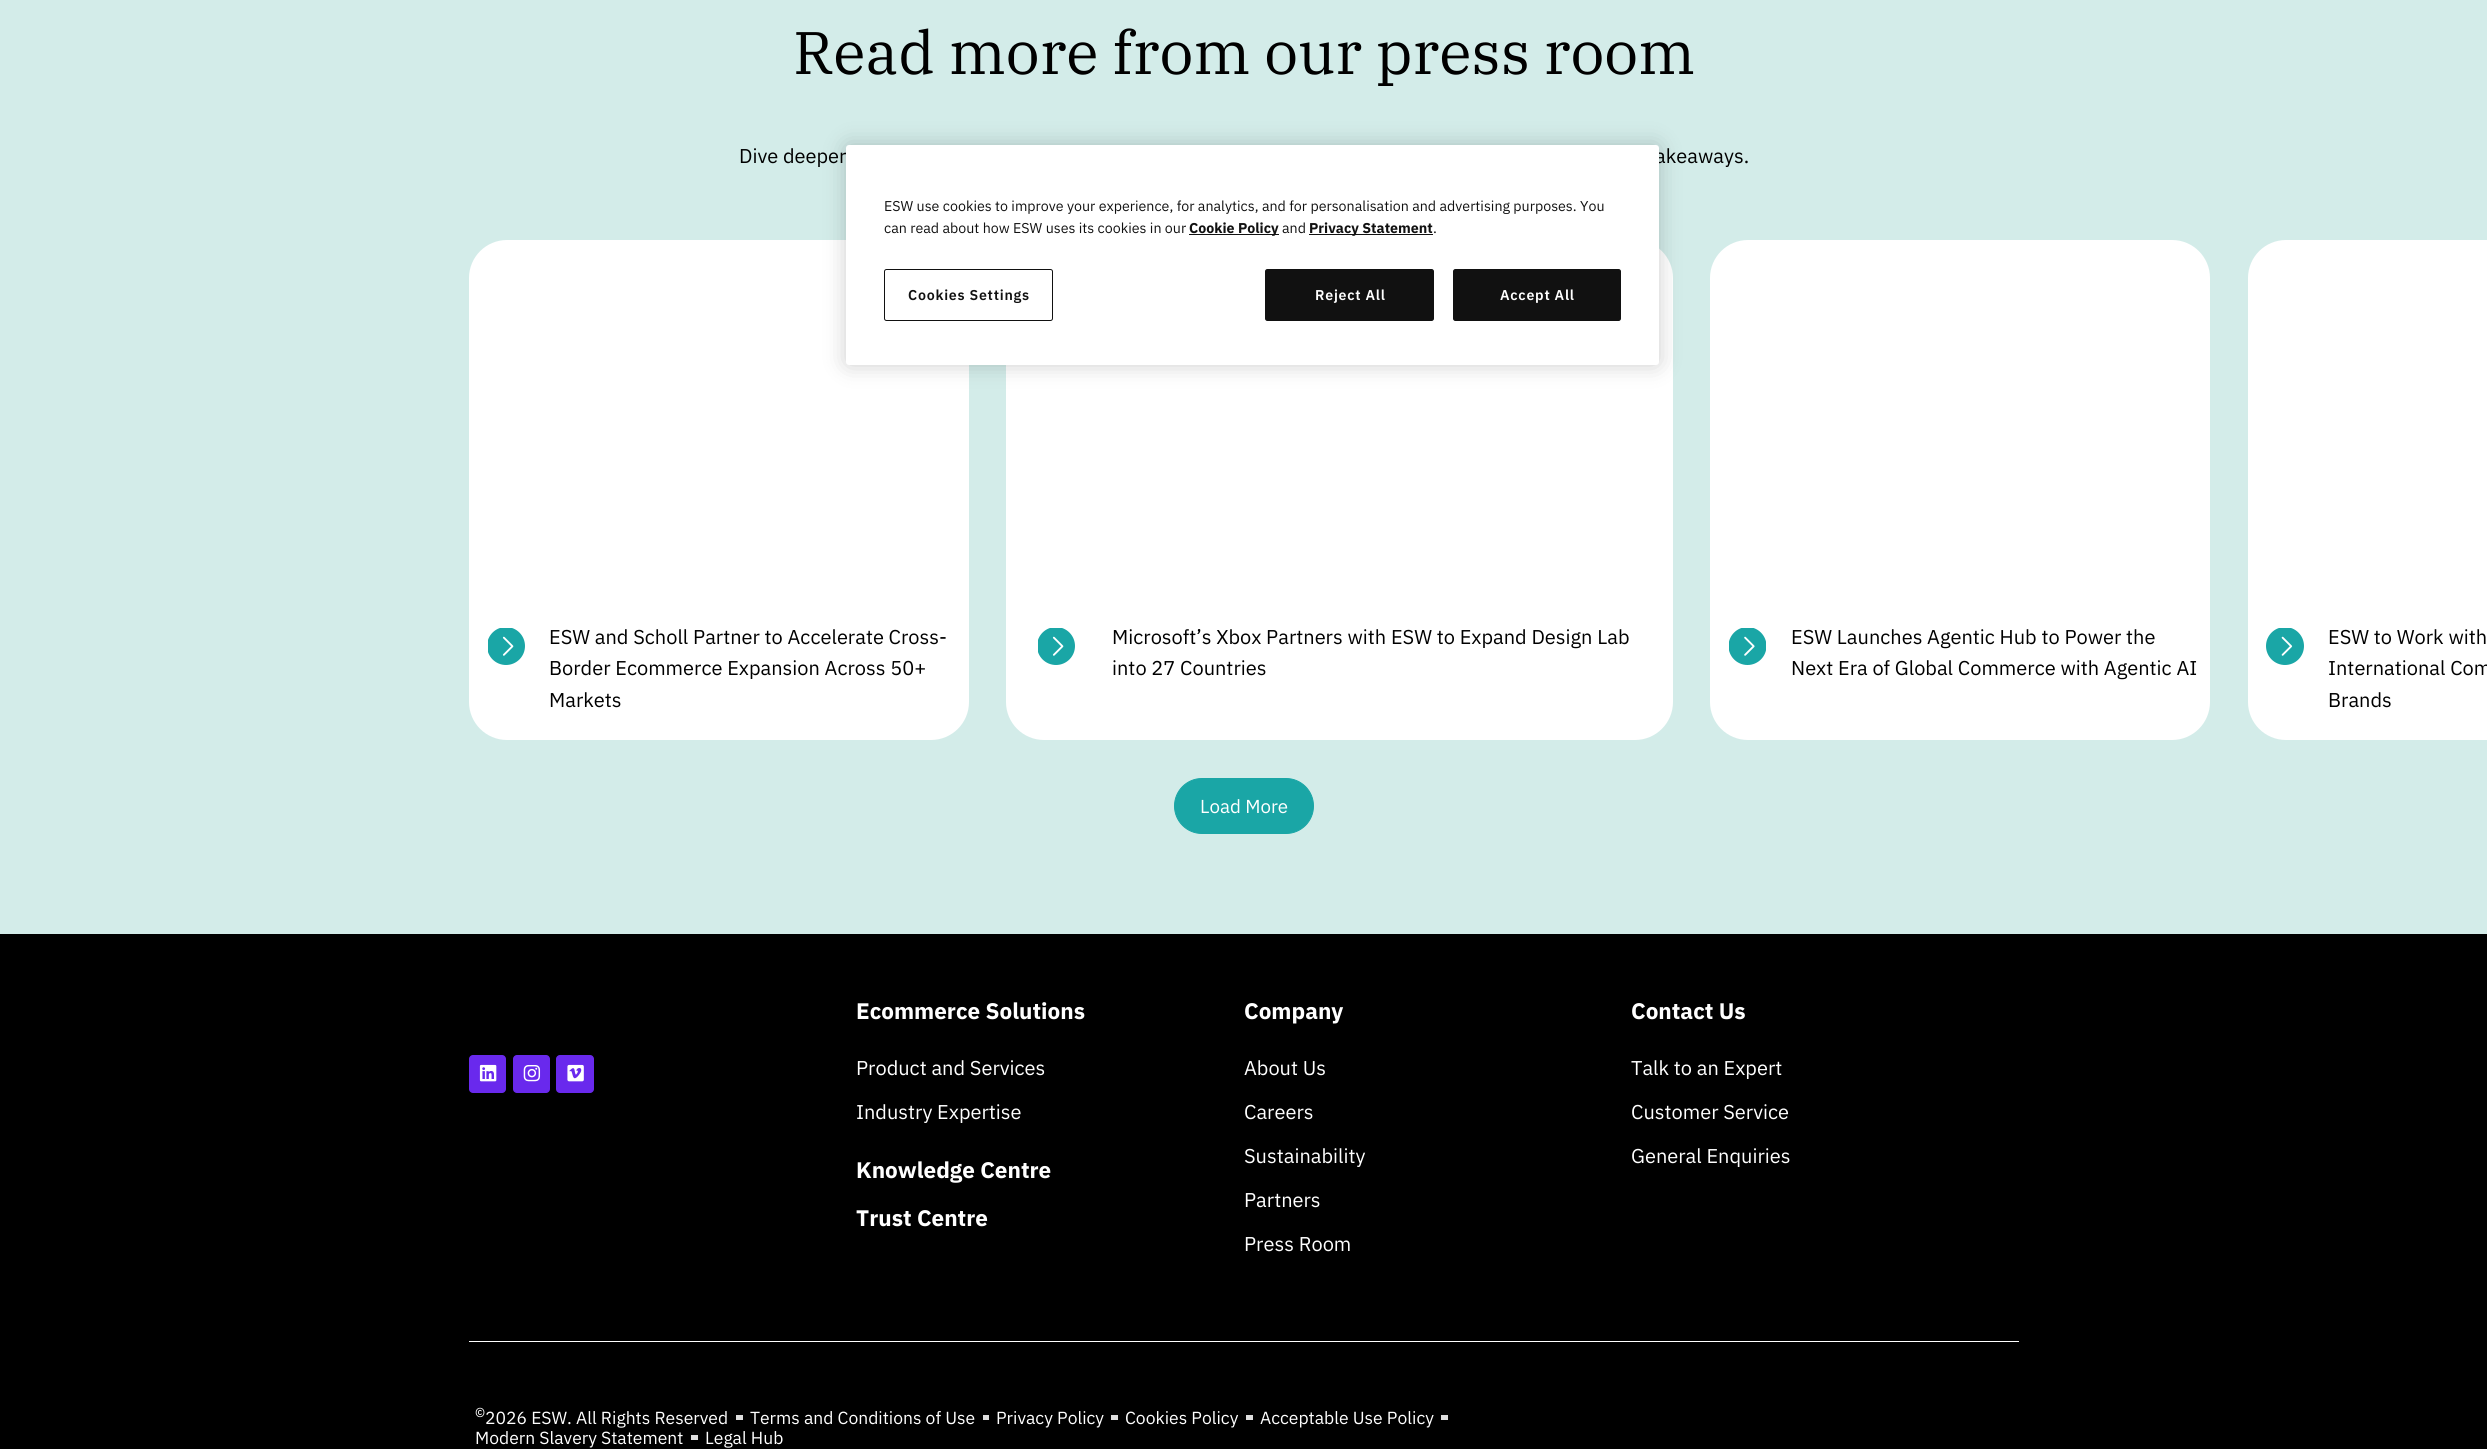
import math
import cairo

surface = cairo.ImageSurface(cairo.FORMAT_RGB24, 2487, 1449)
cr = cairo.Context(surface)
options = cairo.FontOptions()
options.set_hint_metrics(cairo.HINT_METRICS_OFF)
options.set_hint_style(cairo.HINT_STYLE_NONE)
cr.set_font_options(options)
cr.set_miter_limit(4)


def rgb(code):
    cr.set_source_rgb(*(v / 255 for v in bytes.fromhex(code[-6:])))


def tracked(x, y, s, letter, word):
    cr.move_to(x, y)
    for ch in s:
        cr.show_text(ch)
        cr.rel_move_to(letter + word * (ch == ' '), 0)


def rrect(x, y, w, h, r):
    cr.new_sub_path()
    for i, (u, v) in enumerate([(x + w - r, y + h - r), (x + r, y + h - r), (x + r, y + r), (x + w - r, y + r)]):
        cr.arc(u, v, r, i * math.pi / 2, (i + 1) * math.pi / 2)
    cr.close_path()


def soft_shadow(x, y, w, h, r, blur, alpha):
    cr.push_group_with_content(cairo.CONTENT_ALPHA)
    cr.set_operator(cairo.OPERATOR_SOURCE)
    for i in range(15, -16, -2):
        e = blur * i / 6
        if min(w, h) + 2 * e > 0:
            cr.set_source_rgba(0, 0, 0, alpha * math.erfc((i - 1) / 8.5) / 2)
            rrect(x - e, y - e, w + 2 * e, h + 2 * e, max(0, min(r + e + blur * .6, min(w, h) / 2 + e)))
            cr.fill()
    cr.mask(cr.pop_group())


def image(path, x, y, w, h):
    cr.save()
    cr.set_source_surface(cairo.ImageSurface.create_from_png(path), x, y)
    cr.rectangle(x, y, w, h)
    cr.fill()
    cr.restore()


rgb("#000000")
cr.paint()
rgb("#d3ece9")
cr.rectangle(0, 0, 2487, 934)
cr.fill()
rgb("#ffffff")
rrect(469, 240, 500, 500, 38)
cr.fill()
image("img/1.png", 488, 628, 37, 37)
rrect(1006, 240, 667, 500, 38)
cr.fill()
image("img/1.png", 1038, 628, 37, 37)
rrect(1710, 240, 500, 500, 38)
cr.fill()
image("img/2.png", 1729, 628, 37, 37)
rrect(2248, 240, 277, 500, 38)
cr.fill()
image("img/3.png", 2266, 628, 38, 37)
rgb("#1aa6a6")
rrect(1174.5, 778.5, 139, 55, 27.5)
cr.fill_preserve()
cr.set_line_width(1)
cr.stroke()
rgb("#000000")
soft_shadow(846, 145, 813, 220, 3, 11, 0.2)
rgb("#6929ed")
rrect(469, 1055, 37, 38, 4)
cr.fill()
image("img/4.png", 479, 1064, 18, 18)
rrect(513, 1055, 37, 38, 4)
cr.fill()
image("img/5.png", 523, 1065, 18, 17)
rrect(556, 1055, 38, 38, 4)
cr.fill()
image("img/6.png", 567, 1064, 17, 18)
for x, y, w, h, color in [
    (469, 1341, 1550, 1, "#ffffff"),
    (736, 1415, 7, 5, "#dddddd"),
    (983, 1415, 6, 5, "#dddddd"),
    (1111, 1415, 7, 5, "#dddddd"),
    (1246, 1415, 7, 5, "#dddddd"),
    (1441, 1415, 7, 5, "#dddddd"),
    (691, 1435, 7, 5, "#dddddd"),
]:
    rgb(color)
    cr.rectangle(x, y, w, h)
    cr.fill()
cr.select_font_face("IBM Plex Serif")
cr.set_font_size(60)
rgb("#000000")
cr.move_to(793, 74)
cr.show_text("Read more from our press room")
cr.select_font_face("IBM Plex Sans")
cr.set_font_size(20)
for x, y, s in [
    (739, 163, "Dive deeper"),
    (1655, 163, "akeaways."),
    (549, 644, "ESW and Scholl Partner to Accelerate Cross-"),
    (549, 675, "Border Ecommerce Expansion Across 50+"),
    (549, 707, "Markets"),
    (1112, 644, "Microsoft’s Xbox Partners with ESW to Expand Design Lab"),
    (1112, 675, "into 27 Countries"),
    (1791, 644, "ESW Launches Agentic Hub to Power the"),
    (1791, 675, "Next Era of Global Commerce with Agentic AI"),
    (2328, 644, "ESW to Work with"),
    (2328, 675, "International Com"),
    (2328, 707, "Brands"),
]:
    cr.move_to(x, y)
    cr.show_text(s)
cr.set_font_size(18.75)
rgb("#ffffff")
cr.move_to(1200, 813)
cr.show_text("Load More")
rrect(846, 145, 813, 220, 3)
cr.fill()
cr.set_font_size(14.23)
rgb("#111111")
cr.move_to(884, 211)
cr.show_text("ESW use cookies to improve your experience, for analytics, and for personalisation and advertising purposes. You")
cr.move_to(884, 233)
cr.show_text("can read about how ESW uses its cookies in our")
cr.rectangle(1189, 234, 90, 1)
cr.fill()
cr.select_font_face("IBM Plex Sans", cairo.FONT_SLANT_NORMAL, cairo.FONT_WEIGHT_BOLD)
cr.move_to(1189, 233)
cr.show_text("Cookie Policy")
cr.select_font_face("IBM Plex Sans")
cr.move_to(1282, 233)
cr.show_text("and")
cr.rectangle(1309, 234, 124, 1)
cr.fill()
cr.select_font_face("IBM Plex Sans", cairo.FONT_SLANT_NORMAL, cairo.FONT_WEIGHT_BOLD)
cr.move_to(1309, 233)
cr.show_text("Privacy Statement")
cr.select_font_face("IBM Plex Sans")
cr.move_to(1433, 233)
cr.show_text(".")
rrect(884.5, 269.5, 168, 51, 2)
cr.stroke()
cr.select_font_face("IBM Plex Sans SemiBold")
tracked(908, 300, "Cookies Settings", 0.75, 0)
rrect(1265.5, 269.5, 168, 51, 2)
cr.fill_preserve()
cr.stroke()
rgb("#ffffff")
tracked(1315, 300, "Reject All", 0.75, 0)
rgb("#111111")
rrect(1453.5, 269.5, 167, 51, 2)
cr.fill_preserve()
cr.stroke()
rgb("#ffffff")
tracked(1500, 300, "Accept All", 0.75, 0)
cr.select_font_face("IBM Plex Sans", cairo.FONT_SLANT_NORMAL, cairo.FONT_WEIGHT_BOLD)
cr.set_font_size(22.5)
cr.move_to(856, 1019)
cr.show_text("Ecommerce Solutions")
cr.select_font_face("IBM Plex Sans")
cr.set_font_size(20)
cr.move_to(856, 1075)
cr.show_text("Product and Services")
cr.move_to(856, 1119)
cr.show_text("Industry Expertise")
cr.select_font_face("IBM Plex Sans", cairo.FONT_SLANT_NORMAL, cairo.FONT_WEIGHT_BOLD)
cr.set_font_size(22.5)
for x, y, s in [
    (856, 1178, "Knowledge Centre"),
    (856, 1226, "Trust Centre"),
    (1244, 1019, "Company"),
]:
    cr.move_to(x, y)
    cr.show_text(s)
cr.select_font_face("IBM Plex Sans")
cr.set_font_size(20)
for x, y, s in [
    (1244, 1075, "About Us"),
    (1244, 1119, "Careers"),
    (1244, 1163, "Sustainability"),
    (1244, 1207, "Partners"),
    (1244, 1251, "Press Room"),
]:
    cr.move_to(x, y)
    cr.show_text(s)
cr.select_font_face("IBM Plex Sans", cairo.FONT_SLANT_NORMAL, cairo.FONT_WEIGHT_BOLD)
cr.set_font_size(22.5)
cr.move_to(1631, 1019)
cr.show_text("Contact Us")
cr.select_font_face("IBM Plex Sans")
cr.set_font_size(20)
for x, y, s in [
    (1631, 1075, "Talk to an Expert"),
    (1631, 1119, "Customer Service"),
    (1631, 1163, "General Enquiries"),
]:
    cr.move_to(x, y)
    cr.show_text(s)
cr.set_font_size(13)
cr.move_to(475, 1417)
cr.show_text("©")
cr.set_font_size(17.5)
for x, y, s in [
    (485, 1424, "2026 ESW. All Rights Reserved"),
    (750, 1424, "Terms and Conditions of Use"),
    (996, 1424, "Privacy Policy"),
    (1125, 1424, "Cookies Policy"),
    (1260, 1424, "Acceptable Use Policy"),
    (475, 1444, "Modern Slavery Statement"),
    (705, 1444, "Legal Hub"),
]:
    cr.move_to(x, y)
    cr.show_text(s)
surface.write_to_png("page.png")
